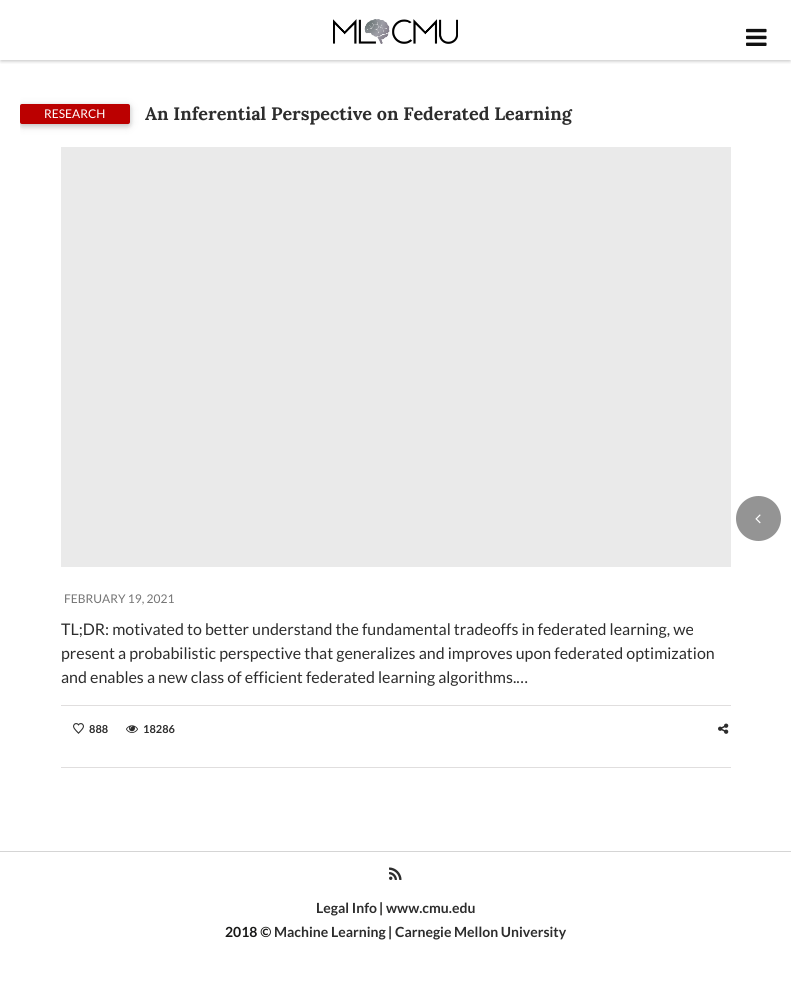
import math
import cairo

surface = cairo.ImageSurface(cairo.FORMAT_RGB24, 791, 991)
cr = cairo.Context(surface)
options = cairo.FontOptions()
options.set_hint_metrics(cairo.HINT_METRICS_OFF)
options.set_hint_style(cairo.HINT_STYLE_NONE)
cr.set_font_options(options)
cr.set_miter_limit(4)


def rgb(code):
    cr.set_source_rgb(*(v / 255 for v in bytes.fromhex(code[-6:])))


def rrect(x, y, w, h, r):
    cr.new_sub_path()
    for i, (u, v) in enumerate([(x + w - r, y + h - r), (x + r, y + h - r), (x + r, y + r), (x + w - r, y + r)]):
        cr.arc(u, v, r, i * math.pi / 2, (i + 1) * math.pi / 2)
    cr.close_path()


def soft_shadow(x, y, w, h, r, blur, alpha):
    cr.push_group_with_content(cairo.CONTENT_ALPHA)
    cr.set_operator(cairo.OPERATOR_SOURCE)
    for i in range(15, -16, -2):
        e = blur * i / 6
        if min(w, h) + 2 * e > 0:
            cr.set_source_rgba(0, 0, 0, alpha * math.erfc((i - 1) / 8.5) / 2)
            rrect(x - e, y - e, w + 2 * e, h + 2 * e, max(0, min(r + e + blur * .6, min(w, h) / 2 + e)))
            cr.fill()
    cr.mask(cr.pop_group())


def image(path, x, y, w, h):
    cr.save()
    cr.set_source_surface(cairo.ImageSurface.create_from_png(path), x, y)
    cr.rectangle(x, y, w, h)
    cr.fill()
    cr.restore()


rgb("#ffffff")
cr.paint()
cr.save()
cr.rectangle(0, 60, 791, 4)
cr.clip()
rgb("#000000")
soft_shadow(1, 3, 789, 58, 0, 2, 0.25)
cr.restore()
image("img/1.png", 333, 19, 125, 25)
image("img/2.png", 746, 28, 21, 18)
cr.save()
cr.rectangle(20, 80, 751, 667)
cr.clip()
rgb("#000000")
soft_shadow(20, 106, 110, 20, 2, 5, 0.12)
soft_shadow(20, 106, 110, 20, 2, 2.5, 0.16)
cr.restore()
rgb("#bb0000")
rrect(20, 104, 110, 20, 2)
cr.fill()
rgb("#eaeaea")
cr.rectangle(61, 147, 670, 420)
cr.fill()
rgb("#e0dede")
cr.rectangle(61, 705, 670, 1)
cr.fill()
image("img/3.png", 73, 723, 11, 11)
image("img/4.png", 126, 725, 12, 8)
image("img/5.png", 718, 723, 11, 11)
cr.rectangle(61, 767, 670, 1)
cr.fill()
rgb("#949494")
cr.arc(758.5, 518.5, 22.5, 0, 2 * math.pi)
cr.fill()
image("img/6.png", 755, 514, 6, 10)
rgb("#d5d5d5")
cr.rectangle(0, 851, 791, 1)
cr.fill()
image("img/7.png", 389, 867, 13, 13)
cr.select_font_face("Lato")
cr.set_font_size(12)
rgb("#ffffff")
cr.move_to(44, 118)
cr.show_text("RESEARCH")
cr.select_font_face("Lora", cairo.FONT_SLANT_NORMAL, cairo.FONT_WEIGHT_BOLD)
cr.set_font_size(18)
rgb("#2d2d2d")
cr.move_to(145, 120)
cr.show_text("An Inferential Perspective on Federated Learning")
cr.select_font_face("Lato")
cr.set_font_size(12)
rgb("#757575")
cr.move_to(64, 603)
cr.show_text("FEBRUARY 19, 2021")
cr.set_font_size(16)
rgb("#2d2d2d")
for x, y, s in [
    (61, 635, "TL;DR: motivated to better understand the fundamental tradeoffs in federated learning, we"),
    (61, 659, "present a probabilistic perspective that generalizes and improves upon federated optimization"),
    (61, 683, "and enables a new class of efficient federated learning algorithms.…"),
]:
    cr.move_to(x, y)
    cr.show_text(s)
cr.select_font_face("Lato", cairo.FONT_SLANT_NORMAL, cairo.FONT_WEIGHT_BOLD)
cr.set_font_size(11)
cr.move_to(89, 733)
cr.show_text("888")
cr.move_to(143, 733)
cr.show_text("18286")
cr.set_font_size(14)
cr.move_to(316, 913)
cr.show_text("Legal Info")
rgb("#181817")
cr.move_to(379, 913)
cr.show_text("|")
rgb("#2d2d2d")
cr.move_to(386, 913)
cr.show_text("www.cmu.edu")
rgb("#181817")
cr.move_to(225, 937)
cr.show_text("2018 ©")
rgb("#2d2d2d")
cr.move_to(274, 937)
cr.show_text("Machine Learning")
rgb("#181817")
cr.move_to(388, 937)
cr.show_text("|")
rgb("#2d2d2d")
cr.move_to(395, 937)
cr.show_text("Carnegie Mellon University")
surface.write_to_png("page.png")
